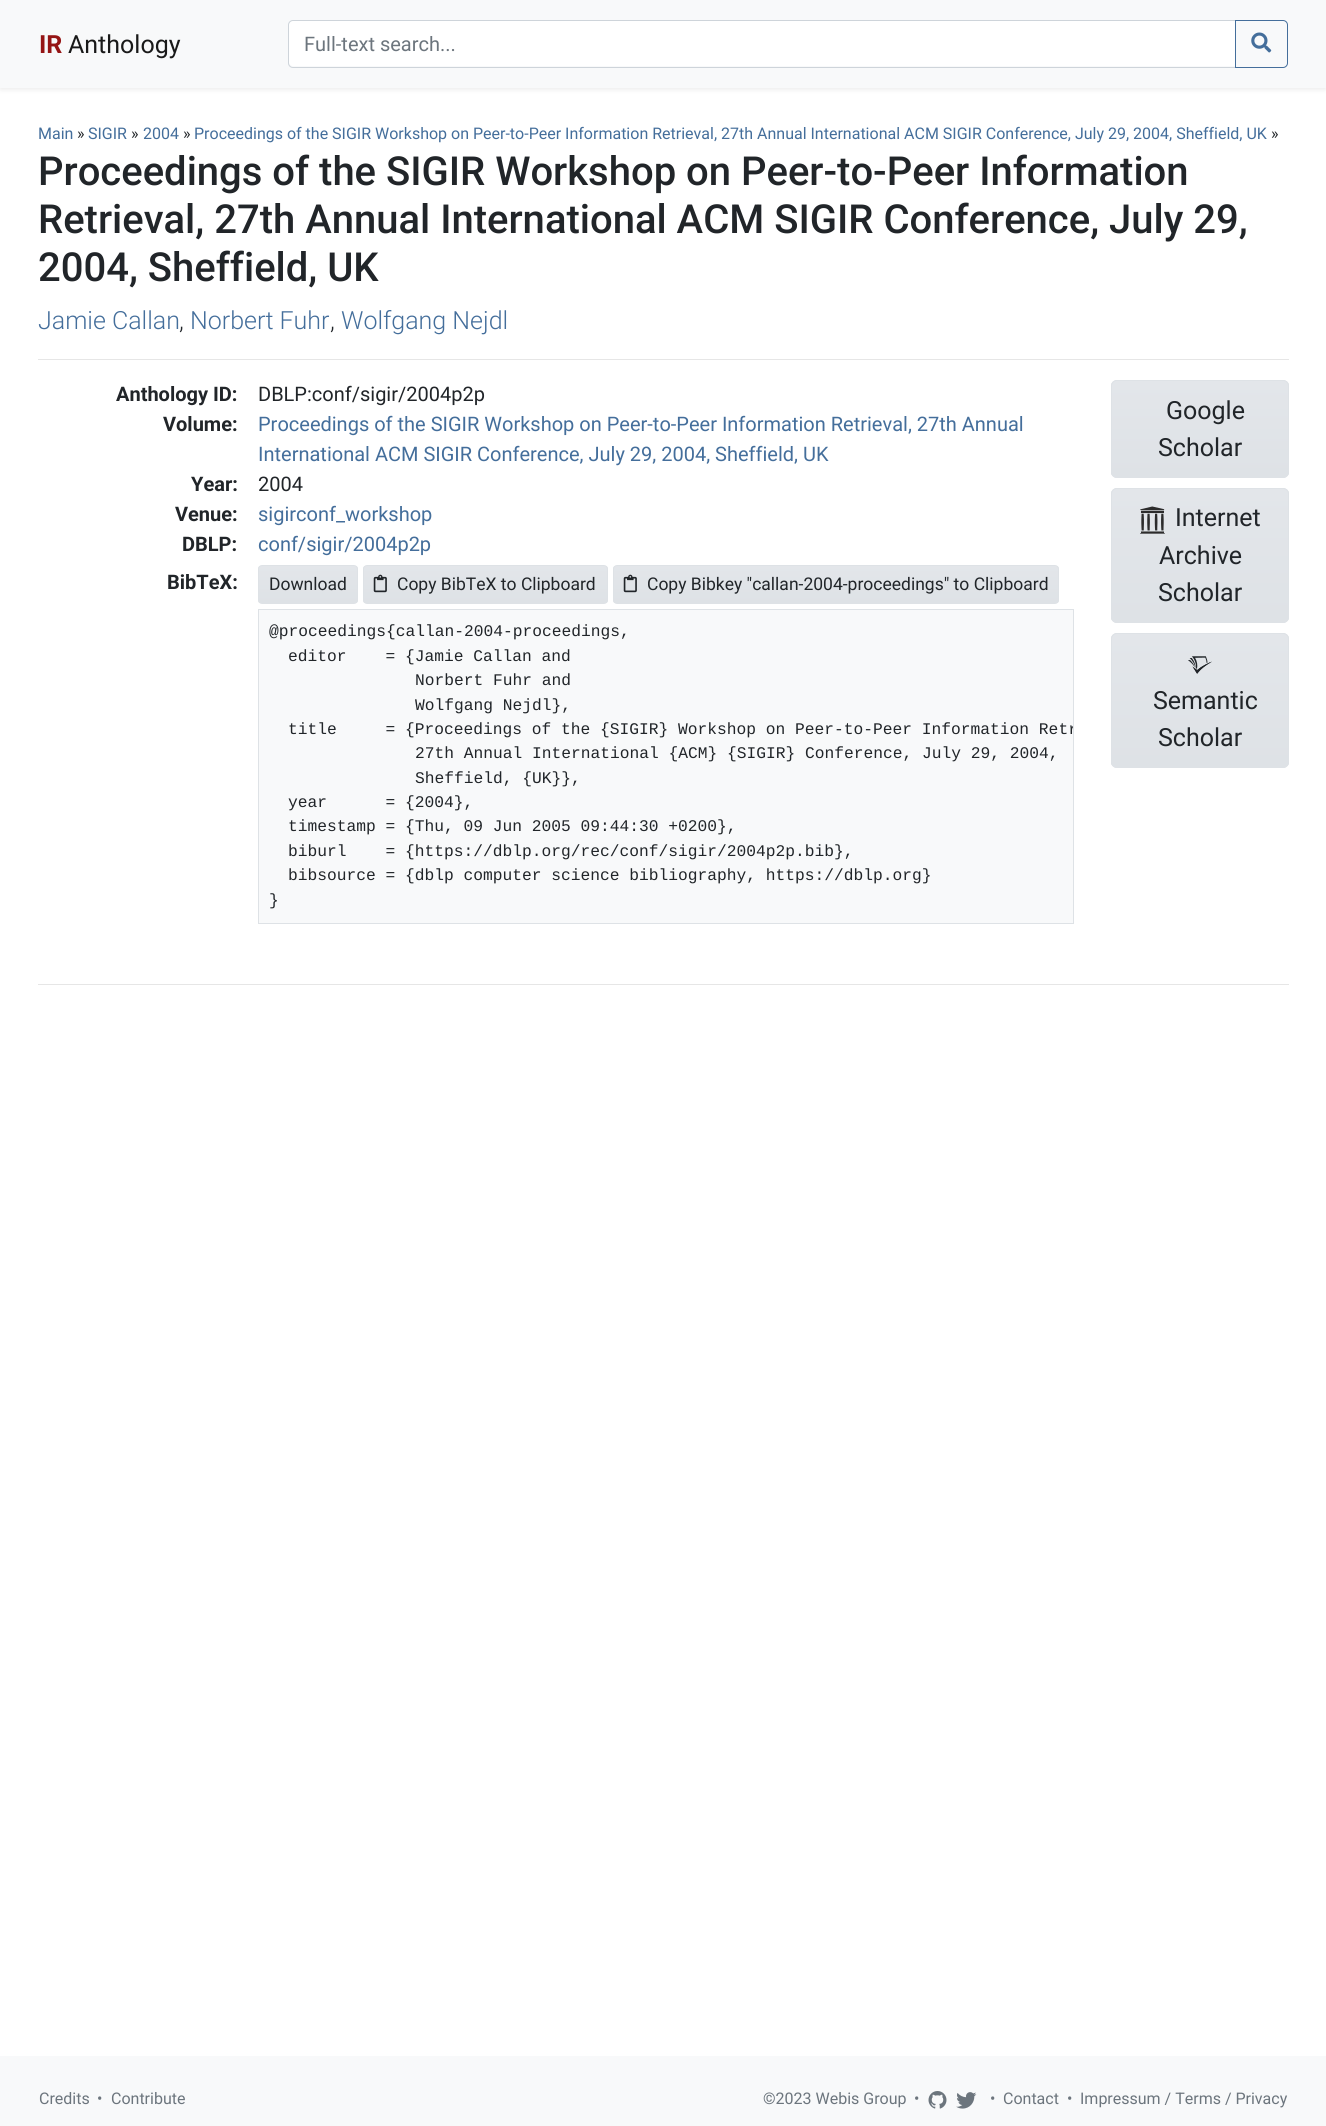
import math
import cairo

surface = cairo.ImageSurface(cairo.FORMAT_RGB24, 1326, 2126)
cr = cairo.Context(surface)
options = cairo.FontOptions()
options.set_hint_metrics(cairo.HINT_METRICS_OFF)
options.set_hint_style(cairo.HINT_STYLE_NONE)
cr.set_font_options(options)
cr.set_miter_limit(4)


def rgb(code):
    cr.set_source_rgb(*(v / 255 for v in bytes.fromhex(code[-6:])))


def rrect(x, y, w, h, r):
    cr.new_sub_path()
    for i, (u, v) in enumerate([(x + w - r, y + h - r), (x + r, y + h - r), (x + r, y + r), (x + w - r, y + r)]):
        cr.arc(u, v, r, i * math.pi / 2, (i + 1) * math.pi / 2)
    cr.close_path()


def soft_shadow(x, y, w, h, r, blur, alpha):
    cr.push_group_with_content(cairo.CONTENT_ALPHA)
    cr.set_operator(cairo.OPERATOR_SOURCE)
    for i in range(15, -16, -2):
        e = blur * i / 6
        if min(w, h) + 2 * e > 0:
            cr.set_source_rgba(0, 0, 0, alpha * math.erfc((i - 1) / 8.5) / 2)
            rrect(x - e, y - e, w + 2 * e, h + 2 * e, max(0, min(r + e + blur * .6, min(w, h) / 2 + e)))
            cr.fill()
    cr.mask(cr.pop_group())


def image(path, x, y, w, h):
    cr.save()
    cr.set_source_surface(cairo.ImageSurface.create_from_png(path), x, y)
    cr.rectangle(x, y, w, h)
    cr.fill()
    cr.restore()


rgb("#ffffff")
cr.paint()
rgb("#000000")
soft_shadow(0, 3, 1326, 87, 0, 2.5, 0.07)
rgb("#f8f9fa")
cr.rectangle(0, 0, 1326, 88)
cr.fill()
rgb("#ffffff")
cr.new_path()
cr.move_to(293, 21)
cr.line_to(1235, 21)
cr.line_to(1235, 66)
cr.line_to(293, 66)
cr.curve_to(291, 66, 289, 64, 289, 62)
cr.line_to(289, 25)
cr.curve_to(289, 23, 291, 21, 293, 21)
cr.close_path()
cr.fill()
cr.new_path()
cr.move_to(293, 20.5)
cr.line_to(1235.5, 20.5)
cr.line_to(1235.5, 67.5)
cr.line_to(293, 67.5)
cr.curve_to(290.5, 67.5, 288.5, 65.5, 288.5, 63)
cr.line_to(288.5, 25)
cr.curve_to(288.5, 22.5, 290.5, 20.5, 293, 20.5)
cr.close_path()
rgb("#ced4da")
cr.set_line_width(1)
cr.stroke()
cr.new_path()
cr.move_to(1235.5, 20.5)
cr.line_to(1283, 20.5)
cr.curve_to(1285.5, 20.5, 1287.5, 22.5, 1287.5, 25)
cr.line_to(1287.5, 63)
cr.curve_to(1287.5, 65.5, 1285.5, 67.5, 1283, 67.5)
cr.line_to(1235.5, 67.5)
cr.close_path()
rgb("#446e9b")
cr.stroke()
image("img/1.png", 1251, 32, 21, 21)
rgb("#e6e6e6")
cr.rectangle(38, 359, 1251, 1)
cr.fill()
cr.save()
rrect(258, 565, 100, 39, 4)
cr.clip()
gradient = cairo.LinearGradient(308, 566, 308, 603)
gradient.add_color_stop_rgba(0, 0.89, 0.902, 0.918, 1)
gradient.add_color_stop_rgba(1, 0.871, 0.886, 0.902, 1)
cr.set_source(gradient)
cr.rectangle(258, 566, 100, 37)
cr.fill()
cr.restore()
rrect(258.5, 565.5, 99, 38, 3.5)
rgb("#dee2e6")
cr.stroke()
cr.save()
rrect(363, 565, 245, 39, 4)
cr.clip()
gradient = cairo.LinearGradient(485, 566, 485, 603)
gradient.add_color_stop_rgba(0, 0.89, 0.902, 0.918, 1)
gradient.add_color_stop_rgba(1, 0.871, 0.886, 0.902, 1)
cr.set_source(gradient)
cr.rectangle(363, 566, 245, 37)
cr.fill()
cr.restore()
rrect(363.5, 565.5, 244, 38, 3.5)
cr.stroke()
image("img/2.png", 373, 574, 14, 19)
cr.save()
rrect(613, 565, 446, 39, 4)
cr.clip()
gradient = cairo.LinearGradient(836, 566, 836, 603)
gradient.add_color_stop_rgba(0, 0.89, 0.902, 0.918, 1)
gradient.add_color_stop_rgba(1, 0.871, 0.886, 0.902, 1)
cr.set_source(gradient)
cr.rectangle(613, 566, 446, 37)
cr.fill()
cr.restore()
rrect(613.5, 565.5, 445, 38, 3.5)
cr.stroke()
image("img/2.png", 623, 574, 14, 19)
rgb("#f8f9fa")
cr.rectangle(258.5, 609.5, 815, 314)
cr.fill_preserve()
rgb("#dee2e6")
cr.stroke()
rrect(1111, 380, 178, 98, 6)
cr.fill()
cr.save()
rrect(1111, 380, 178, 98, 6)
cr.clip()
gradient = cairo.LinearGradient(1200, 381, 1200, 476)
gradient.add_color_stop_rgba(0, 0.89, 0.902, 0.918, 1)
gradient.add_color_stop_rgba(1, 0.871, 0.886, 0.902, 1)
cr.set_source(gradient)
cr.rectangle(1111, 381, 178, 95)
cr.fill()
cr.restore()
rrect(1111.5, 380.5, 177, 97, 5.5)
cr.stroke()
rrect(1111, 488, 178, 135, 6)
cr.fill()
cr.save()
rrect(1111, 488, 178, 135, 6)
cr.clip()
gradient = cairo.LinearGradient(1200, 489, 1200, 621)
gradient.add_color_stop_rgba(0, 0.89, 0.902, 0.918, 1)
gradient.add_color_stop_rgba(1, 0.871, 0.886, 0.902, 1)
cr.set_source(gradient)
cr.rectangle(1111, 489, 178, 132)
cr.fill()
cr.restore()
rrect(1111.5, 488.5, 177, 134, 5.5)
cr.stroke()
image("img/3.png", 1140, 506, 25, 28)
rrect(1111, 633, 178, 135, 6)
cr.fill()
cr.save()
rrect(1111, 633, 178, 135, 6)
cr.clip()
gradient = cairo.LinearGradient(1200, 634, 1200, 766)
gradient.add_color_stop_rgba(0, 0.89, 0.902, 0.918, 1)
gradient.add_color_stop_rgba(1, 0.871, 0.886, 0.902, 1)
cr.set_source(gradient)
cr.rectangle(1111, 634, 178, 132)
cr.fill()
cr.restore()
rrect(1111.5, 633.5, 177, 134, 5.5)
cr.stroke()
image("img/4.png", 1188, 656, 24, 18)
rgb("#e6e6e6")
cr.rectangle(38, 984, 1251, 1)
cr.fill()
rgb("#f8f9fa")
cr.rectangle(0, 2056, 1326, 70)
cr.fill()
image("img/5.png", 928, 2091, 19, 18)
image("img/6.png", 956, 2092, 21, 17)
cr.select_font_face("Roboto", cairo.FONT_SLANT_NORMAL, cairo.FONT_WEIGHT_BOLD)
cr.set_font_size(25)
rgb("#951515")
cr.move_to(39, 53)
cr.show_text("IR")
cr.select_font_face("Roboto")
rgb("#191919")
cr.move_to(68, 53)
cr.show_text("Anthology")
cr.set_font_size(20)
rgb("#6c757d")
cr.move_to(304, 51)
cr.show_text("Full-text search...")
cr.set_font_size(16)
rgb("#446e9b")
cr.move_to(38, 139)
cr.show_text("Main")
rgb("#212529")
cr.move_to(77, 139)
cr.show_text("»")
rgb("#446e9b")
cr.move_to(88, 139)
cr.show_text("SIGIR")
rgb("#212529")
cr.move_to(131, 139)
cr.show_text("»")
rgb("#446e9b")
cr.move_to(143, 139)
cr.show_text("2004")
rgb("#212529")
cr.move_to(183, 139)
cr.show_text("»")
rgb("#446e9b")
cr.move_to(194, 139)
cr.show_text("Proceedings of the SIGIR Workshop on Peer-to-Peer Information Retrieval, 27th Annual International ACM SIGIR Conference, July 29, 2004, Sheffield, UK")
rgb("#212529")
cr.move_to(1271, 139)
cr.show_text("»")
cr.select_font_face("Roboto Medium")
cr.set_font_size(40)
for x, y, s in [
    (38, 185, "Proceedings of the SIGIR Workshop on Peer-to-Peer Information"),
    (38, 233, "Retrieval, 27th Annual International ACM SIGIR Conference, July 29,"),
    (38, 281, "2004, Sheffield, UK"),
]:
    cr.move_to(x, y)
    cr.show_text(s)
cr.select_font_face("Roboto Light")
cr.set_font_size(25)
rgb("#446e9b")
cr.move_to(38, 329)
cr.show_text("Jamie Callan")
rgb("#212529")
cr.move_to(179, 329)
cr.show_text(",")
rgb("#446e9b")
cr.move_to(190, 329)
cr.show_text("Norbert Fuhr")
rgb("#212529")
cr.move_to(330, 329)
cr.show_text(",")
rgb("#446e9b")
cr.move_to(341, 329)
cr.show_text("Wolfgang Nejdl")
cr.select_font_face("Roboto", cairo.FONT_SLANT_NORMAL, cairo.FONT_WEIGHT_BOLD)
cr.set_font_size(20)
rgb("#212529")
cr.move_to(116, 401)
cr.show_text("Anthology ID:")
cr.select_font_face("Roboto")
cr.move_to(258, 401)
cr.show_text("DBLP:conf/sigir/2004p2p")
cr.select_font_face("Roboto", cairo.FONT_SLANT_NORMAL, cairo.FONT_WEIGHT_BOLD)
cr.move_to(163, 431)
cr.show_text("Volume:")
cr.select_font_face("Roboto")
rgb("#446e9b")
cr.move_to(258, 431)
cr.show_text("Proceedings of the SIGIR Workshop on Peer-to-Peer Information Retrieval, 27th Annual")
cr.move_to(258, 461)
cr.show_text("International ACM SIGIR Conference, July 29, 2004, Sheffield, UK")
cr.select_font_face("Roboto", cairo.FONT_SLANT_NORMAL, cairo.FONT_WEIGHT_BOLD)
rgb("#212529")
cr.move_to(191, 491)
cr.show_text("Year:")
cr.select_font_face("Roboto")
cr.move_to(258, 491)
cr.show_text("2004")
cr.select_font_face("Roboto", cairo.FONT_SLANT_NORMAL, cairo.FONT_WEIGHT_BOLD)
cr.move_to(175, 521)
cr.show_text("Venue:")
cr.select_font_face("Roboto")
rgb("#446e9b")
cr.move_to(258, 521)
cr.show_text("sigirconf_workshop")
cr.select_font_face("Roboto", cairo.FONT_SLANT_NORMAL, cairo.FONT_WEIGHT_BOLD)
rgb("#212529")
cr.move_to(182, 551)
cr.show_text("DBLP:")
cr.select_font_face("Roboto")
rgb("#446e9b")
cr.move_to(258, 551)
cr.show_text("conf/sigir/2004p2p")
cr.select_font_face("Roboto", cairo.FONT_SLANT_NORMAL, cairo.FONT_WEIGHT_BOLD)
rgb("#212529")
cr.move_to(167, 589)
cr.show_text("BibTeX:")
cr.select_font_face("Roboto")
cr.set_font_size(17.5)
for x, y, s in [
    (269, 590, "Download"),
    (397, 590, "Copy BibTeX to Clipboard"),
    (647, 590, "Copy Bibkey \"callan-2004-proceedings\" to Clipboard"),
]:
    cr.move_to(x, y)
    cr.show_text(s)
cr.select_font_face("Liberation Mono")
cr.set_font_size(16.25)
for x, y, s in [
    (269, 636, "@proceedings{callan-2004-proceedings,"),
    (288, 661, "editor    = {Jamie Callan and"),
    (415, 685, "Norbert Fuhr and"),
    (415, 710, "Wolfgang Nejdl},"),
]:
    cr.move_to(x, y)
    cr.show_text(s)
cr.save()
cr.rectangle(259, 610, 814, 313)
cr.clip()
cr.move_to(288, 734)
cr.show_text("title     = {Proceedings of the {SIGIR} Workshop on Peer-to-Peer Information Retr")
cr.restore()
for x, y, s in [
    (415, 758, "27th Annual International {ACM} {SIGIR} Conference, July 29, 2004,"),
    (415, 783, "Sheffield, {UK}},"),
    (288, 807, "year      = {2004},"),
    (288, 831, "timestamp = {Thu, 09 Jun 2005 09:44:30 +0200},"),
    (288, 856, "biburl    = {https://dblp.org/rec/conf/sigir/2004p2p.bib},"),
    (288, 880, "bibsource = {dblp computer science bibliography, https://dblp.org}"),
    (269, 905, "}"),
]:
    cr.move_to(x, y)
    cr.show_text(s)
cr.select_font_face("Roboto")
cr.set_font_size(25)
for x, y, s in [
    (1166, 419, "Google"),
    (1158, 456, "Scholar"),
    (1175, 526, "Internet"),
    (1159, 564, "Archive"),
    (1158, 601, "Scholar"),
    (1153, 709, "Semantic"),
    (1158, 746, "Scholar"),
]:
    cr.move_to(x, y)
    cr.show_text(s)
cr.set_font_size(16)
rgb("#6c757d")
for x, y, s in [
    (39, 2104, "Credits"),
    (97, 2104, "•"),
    (111, 2104, "Contribute"),
    (763, 2104, "©2023 Webis Group"),
    (914, 2104, "•"),
    (990, 2104, "•"),
    (1003, 2104, "Contact"),
    (1067, 2104, "•"),
    (1080, 2104, "Impressum / Terms / Privacy"),
]:
    cr.move_to(x, y)
    cr.show_text(s)
surface.write_to_png("page.png")
